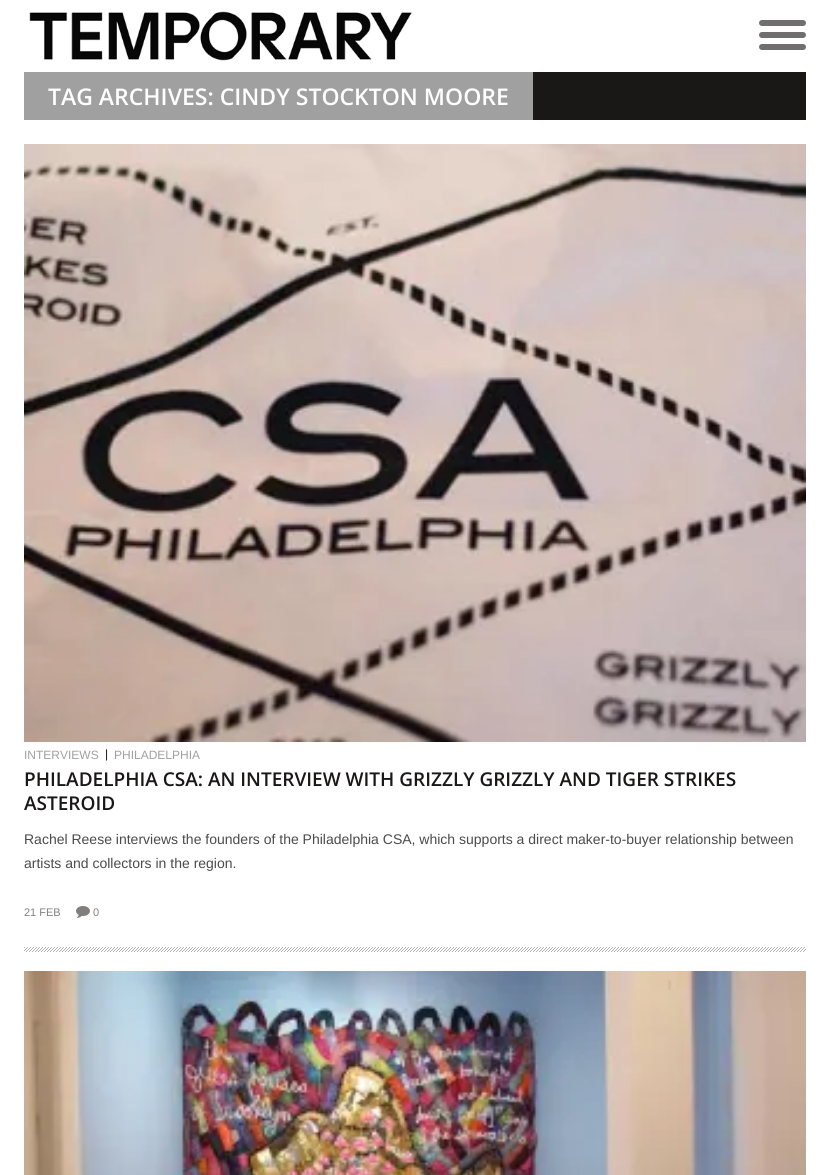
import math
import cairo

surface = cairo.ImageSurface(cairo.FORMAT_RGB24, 830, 1175)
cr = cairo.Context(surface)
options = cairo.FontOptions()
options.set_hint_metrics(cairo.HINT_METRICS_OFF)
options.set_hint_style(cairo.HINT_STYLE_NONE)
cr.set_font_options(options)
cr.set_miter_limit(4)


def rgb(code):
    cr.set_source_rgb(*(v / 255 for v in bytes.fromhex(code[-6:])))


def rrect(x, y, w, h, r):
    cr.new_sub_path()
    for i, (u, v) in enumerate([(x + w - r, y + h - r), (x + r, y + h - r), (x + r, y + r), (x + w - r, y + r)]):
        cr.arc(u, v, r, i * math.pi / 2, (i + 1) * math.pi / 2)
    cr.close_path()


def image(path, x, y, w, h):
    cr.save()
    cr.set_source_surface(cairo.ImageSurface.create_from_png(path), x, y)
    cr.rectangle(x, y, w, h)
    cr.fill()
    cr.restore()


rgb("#ffffff")
cr.paint()
image("img/1.png", 29, 11, 383, 50)
rgb("#706e6e")
rrect(759, 32, 47, 6, 3)
cr.fill()
rrect(759, 20, 47, 6, 3)
cr.fill()
rrect(759, 44, 47, 6, 3)
cr.fill()
rgb("#1a1717")
cr.rectangle(533, 72, 273, 48)
cr.fill()
rgb("#a0a0a0")
cr.rectangle(24, 72, 509, 48)
cr.fill()
image("img/2.png", 24, 144, 782, 598)
image("img/3.png", 76, 906, 14, 12)
image("img/4.png", 24, 947, 782, 5)
image("img/5.png", 24, 971, 782, 204)
cr.select_font_face("Open Sans SemiBold")
cr.set_font_size(23)
rgb("#ffffff")
cr.move_to(48, 105)
cr.show_text("TAG ARCHIVES: CINDY STOCKTON MOORE")
cr.select_font_face("Liberation Sans")
cr.set_font_size(12)
rgb("#a0a0a0")
cr.move_to(24, 759)
cr.show_text("INTERVIEWS")
rgb("#1a1717")
cr.move_to(105, 758)
cr.show_text("|")
rgb("#a0a0a0")
cr.move_to(114, 759)
cr.show_text("PHILADELPHIA")
cr.select_font_face("Open Sans SemiBold")
cr.set_font_size(19)
rgb("#1a1717")
cr.move_to(24, 786)
cr.show_text("PHILADELPHIA CSA: AN INTERVIEW WITH GRIZZLY GRIZZLY AND TIGER STRIKES")
cr.move_to(24, 810)
cr.show_text("ASTEROID")
cr.select_font_face("Liberation Sans")
cr.set_font_size(14)
rgb("#4c4a4a")
cr.move_to(24, 844)
cr.show_text("Rachel Reese interviews the founders of the Philadelphia CSA, which supports a direct maker-to-buyer relationship between")
cr.move_to(24, 868)
cr.show_text("artists and collectors in the region.")
cr.set_font_size(11)
rgb("#807f7e")
cr.move_to(24, 916)
cr.show_text("21 FEB")
cr.move_to(93, 916)
cr.show_text("0")
surface.write_to_png("page.png")
